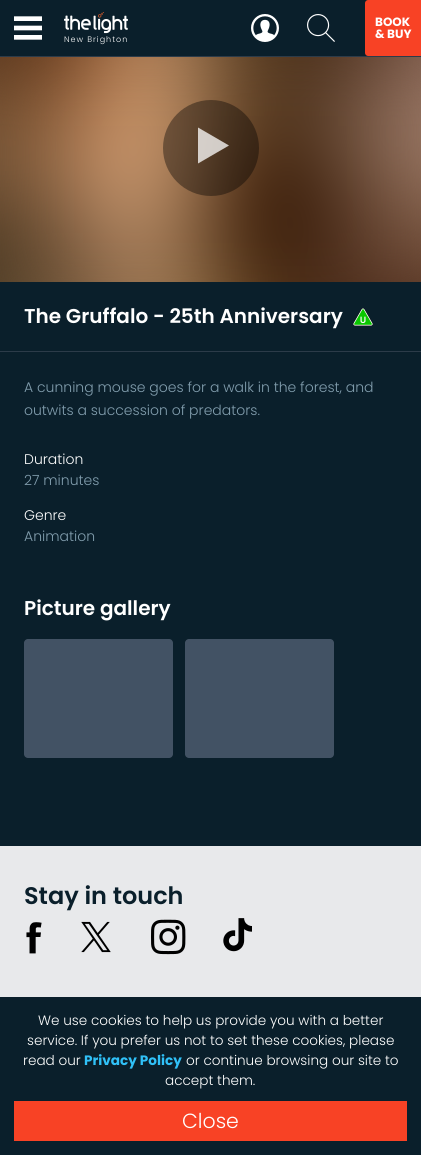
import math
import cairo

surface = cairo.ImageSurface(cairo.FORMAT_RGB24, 421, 1155)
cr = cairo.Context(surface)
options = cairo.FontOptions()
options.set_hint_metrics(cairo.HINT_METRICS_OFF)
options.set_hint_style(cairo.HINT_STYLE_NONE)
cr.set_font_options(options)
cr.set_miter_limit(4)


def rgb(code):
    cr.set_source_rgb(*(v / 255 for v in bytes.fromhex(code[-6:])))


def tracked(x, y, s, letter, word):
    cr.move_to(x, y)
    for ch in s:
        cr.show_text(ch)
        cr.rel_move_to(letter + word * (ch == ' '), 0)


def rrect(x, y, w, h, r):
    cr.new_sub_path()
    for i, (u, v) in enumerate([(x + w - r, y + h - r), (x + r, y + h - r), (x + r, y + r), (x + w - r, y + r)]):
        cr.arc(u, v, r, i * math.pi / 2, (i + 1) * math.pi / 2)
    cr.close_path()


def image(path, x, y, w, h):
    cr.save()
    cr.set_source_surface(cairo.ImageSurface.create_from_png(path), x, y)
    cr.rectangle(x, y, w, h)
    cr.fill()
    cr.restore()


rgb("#0a1f2b")
cr.paint()
rgb("#2c3b49")
cr.rectangle(0, 56, 421, 1)
cr.fill()
image("img/1.png", 251, 14, 28, 28)
image("img/2.png", 307, 14, 28, 28)
rgb("#f84225")
cr.new_path()
cr.move_to(368, 0)
cr.line_to(421, 0)
cr.line_to(421, 56)
cr.line_to(368, 56)
cr.curve_to(366.5, 56, 365, 54.5, 365, 53)
cr.line_to(365, 3)
cr.curve_to(365, 1.5, 366.5, 0, 368, 0)
cr.close_path()
cr.fill()
image("img/3.png", 14, 16, 28, 24)
image("img/4.png", 64, 12, 64, 22)
rgb("#2c3b49")
cr.rectangle(0, 351, 421, 1)
cr.fill()
image("img/5.png", 0, 57, 421, 225)
cr.set_source_rgba(0, 0, 0, 0.38)
cr.arc(211, 148, 48, 0, 2 * math.pi)
cr.fill()
cr.set_source_rgba(1, 1, 1, 0.75)
cr.new_path()
cr.move_to(198, 127.5)
cr.line_to(229, 145.5)
cr.line_to(198, 163.5)
cr.close_path()
cr.fill()
image("img/6.png", 353, 308, 20, 18)
rgb("#425264")
rrect(24, 639, 149, 119, 4)
cr.fill()
rrect(185, 639, 149, 119, 4)
cr.fill()
rgb("#e8e9eb")
cr.rectangle(0, 846, 421, 151)
cr.fill()
image("img/7.png", 26, 922, 16, 32)
image("img/8.png", 81, 921, 30, 32)
image("img/9.png", 151, 919, 35, 36)
image("img/10.png", 223, 918, 29, 34)
rgb("#f84225")
cr.rectangle(14, 1101, 393, 40)
cr.fill()
cr.select_font_face("Poppins", cairo.FONT_SLANT_NORMAL, cairo.FONT_WEIGHT_BOLD)
cr.set_font_size(12)
rgb("#ffffff")
cr.move_to(375, 26)
cr.show_text("BOOK")
cr.move_to(375, 38)
cr.show_text("& BUY")
cr.select_font_face("Poppins Light")
cr.set_font_size(8)
tracked(64, 42, "New Brighton", 1, 0)
cr.select_font_face("Poppins SemiBold")
cr.set_font_size(20)
cr.move_to(24, 323)
cr.show_text("The Gruffalo - 25th Anniversary")
cr.select_font_face("Poppins Light")
cr.set_font_size(14)
rgb("#829eae")
cr.move_to(24, 392)
cr.show_text("A cunning mouse goes for a walk in the forest, and")
cr.move_to(24, 415)
cr.show_text("outwits a succession of predators.")
rgb("#ffffff")
cr.move_to(24, 464)
cr.show_text("Duration")
rgb("#829eae")
cr.move_to(24, 485)
cr.show_text("27 minutes")
rgb("#ffffff")
cr.move_to(24, 520)
cr.show_text("Genre")
rgb("#829eae")
cr.move_to(24, 541)
cr.show_text("Animation")
cr.select_font_face("Poppins SemiBold")
cr.set_font_size(20)
rgb("#ffffff")
cr.move_to(24, 615)
cr.show_text("Picture gallery")
cr.set_font_size(24)
rgb("#0a1f2b")
cr.move_to(24, 904)
cr.show_text("Stay in touch")
cr.select_font_face("Poppins Light")
cr.set_font_size(13.6)
rgb("#ffffff")
for x, y, s in [
    (38, 1025, "We use cookies to help us provide you with a better"),
    (27, 1045, "service. If you prefer us not to set these cookies, please"),
    (23, 1065, "read our"),
]:
    cr.move_to(x, y)
    cr.show_text(s)
cr.select_font_face("Poppins", cairo.FONT_SLANT_NORMAL, cairo.FONT_WEIGHT_BOLD)
rgb("#30c1f8")
cr.move_to(84, 1065)
cr.show_text("Privacy Policy")
cr.select_font_face("Poppins Light")
rgb("#ffffff")
cr.move_to(186, 1065)
cr.show_text("or continue browsing our site to")
cr.move_to(165, 1085)
cr.show_text("accept them.")
cr.set_font_size(20.5)
cr.move_to(182, 1128)
cr.show_text("Close")
surface.write_to_png("page.png")
